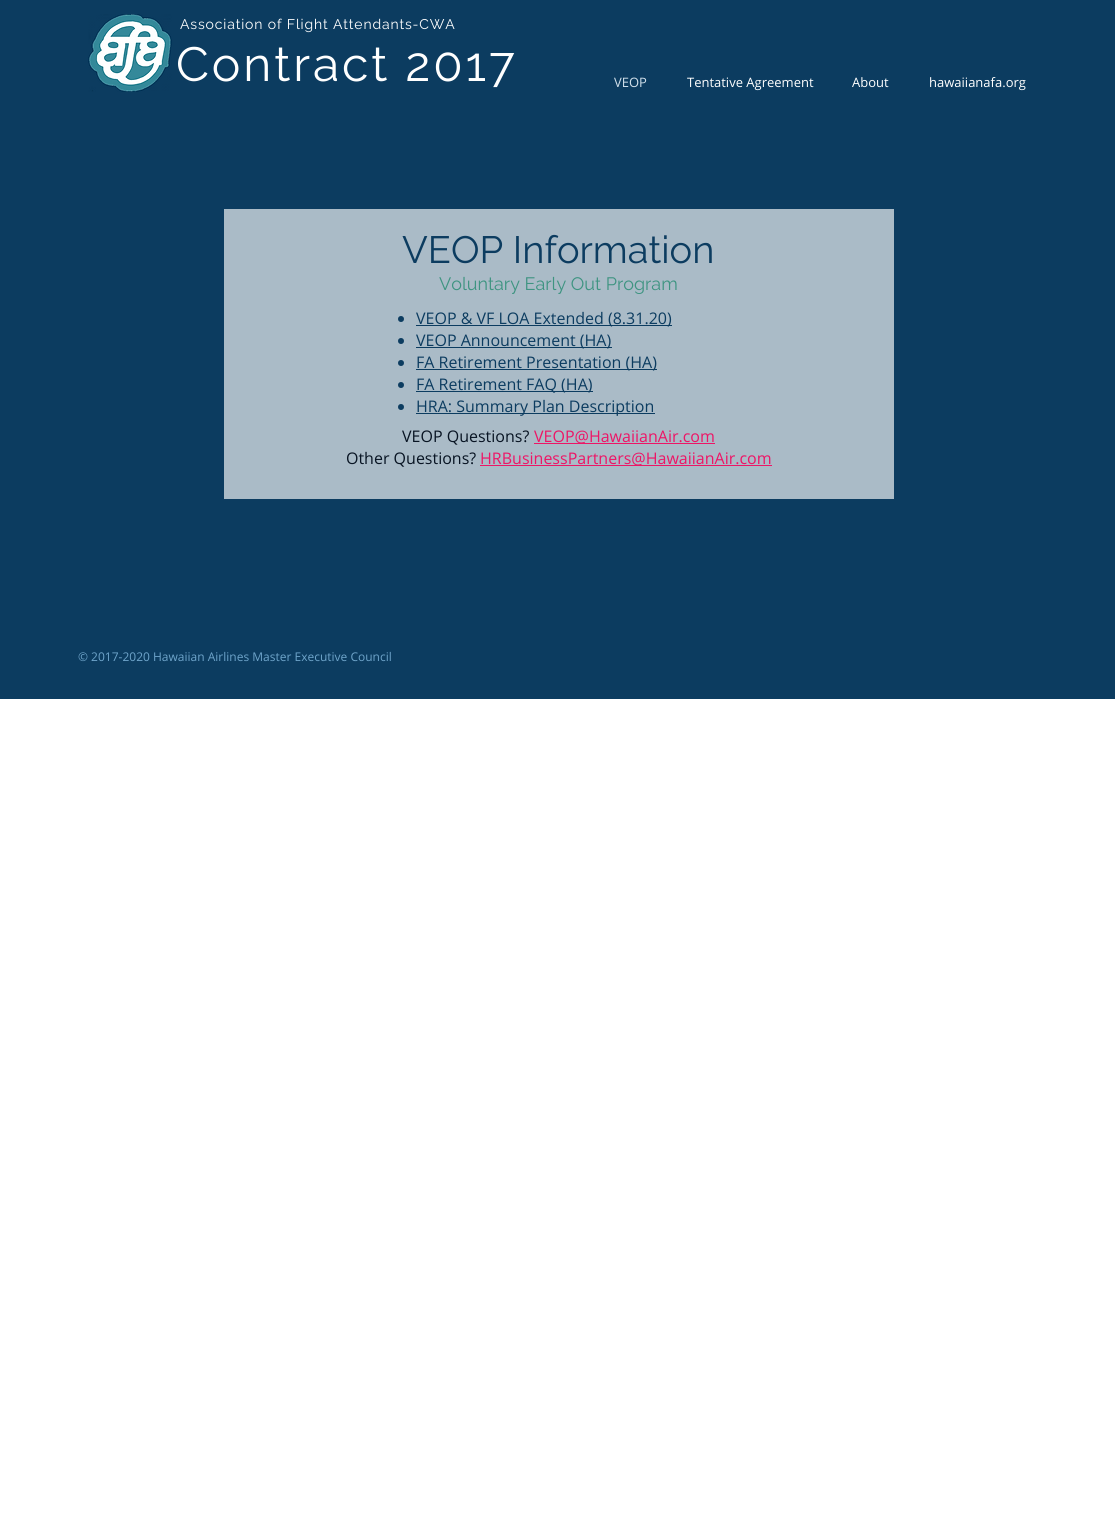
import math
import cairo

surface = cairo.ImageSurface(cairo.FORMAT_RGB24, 1115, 1515)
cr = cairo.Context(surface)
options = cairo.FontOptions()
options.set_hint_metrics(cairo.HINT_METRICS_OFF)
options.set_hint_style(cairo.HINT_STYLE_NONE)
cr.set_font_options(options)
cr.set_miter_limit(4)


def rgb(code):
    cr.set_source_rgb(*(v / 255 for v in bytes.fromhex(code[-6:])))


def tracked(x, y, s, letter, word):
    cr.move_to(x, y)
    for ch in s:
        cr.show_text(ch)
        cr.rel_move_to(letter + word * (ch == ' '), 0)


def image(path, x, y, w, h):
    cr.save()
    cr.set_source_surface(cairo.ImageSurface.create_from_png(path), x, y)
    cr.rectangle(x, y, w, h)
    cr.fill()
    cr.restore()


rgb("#ffffff")
cr.paint()
rgb("#0c3c60")
cr.rectangle(0, 0, 1115, 699)
cr.fill()
image("img/1.png", 88, 14, 84, 78)
rgb("#aabbc7")
cr.rectangle(224, 209, 670, 290)
cr.fill()
rgb("#0c3c60")
cr.arc(401, 319, 3, 0, 2 * math.pi)
cr.fill()
cr.rectangle(416, 325, 256, 1)
cr.fill()
cr.arc(401, 341, 3, 0, 2 * math.pi)
cr.fill()
cr.rectangle(416, 347, 196, 1)
cr.fill()
cr.arc(401, 363, 3, 0, 2 * math.pi)
cr.fill()
cr.rectangle(416, 369, 241, 1)
cr.fill()
cr.arc(401, 385, 3, 0, 2 * math.pi)
cr.fill()
cr.rectangle(416, 391, 177, 1)
cr.fill()
cr.arc(401, 407, 3, 0, 2 * math.pi)
cr.fill()
for x, y, w, h, color in [
    (416, 413, 239, 1, "#0c3c60"),
    (534, 443, 181, 1, "#ed1566"),
    (480, 465, 292, 1, "#ed1566"),
]:
    rgb(color)
    cr.rectangle(x, y, w, h)
    cr.fill()
cr.select_font_face("Raleway")
cr.set_font_size(14)
rgb("#ffffff")
tracked(180, 29, "Association of Flight Attendants-CWA", 0.85, 0)
cr.set_font_size(48)
tracked(176, 81, "Contract 2017", 2.9, 0)
cr.select_font_face("Open Sans")
cr.set_font_size(13)
rgb("#d1e0eb")
cr.move_to(614, 87)
cr.show_text("VEOP")
rgb("#ffffff")
for x, y, s in [
    (687, 87, "Tentative Agreement"),
    (852, 87, "About"),
    (929, 87, "hawaiianafa.org"),
]:
    cr.move_to(x, y)
    cr.show_text(s)
cr.select_font_face("Raleway")
cr.set_font_size(38)
rgb("#0c3c60")
cr.move_to(402, 263)
cr.show_text("VEOP Information")
cr.set_font_size(18)
rgb("#3e9481")
cr.move_to(439, 290)
cr.show_text("Voluntary Early Out Program")
cr.select_font_face("Open Sans")
cr.set_font_size(16)
rgb("#0c3c60")
for x, y, s in [
    (416, 324, "VEOP & VF LOA Extended (8.31.20)"),
    (416, 346, "VEOP Announcement (HA)"),
    (416, 368, "FA Retirement Presentation (HA)"),
    (416, 390, "FA Retirement FAQ (HA)"),
    (416, 412, "HRA: Summary Plan Description"),
]:
    cr.move_to(x, y)
    cr.show_text(s)
rgb("#081423")
cr.move_to(402, 442)
cr.show_text("VEOP Questions?")
rgb("#ed1566")
cr.move_to(534, 442)
cr.show_text("VEOP@HawaiianAir.com")
rgb("#081423")
cr.move_to(346, 464)
cr.show_text("Other Questions?")
rgb("#ed1566")
cr.move_to(480, 464)
cr.show_text("HRBusinessPartners@HawaiianAir.com")
cr.set_font_size(12)
rgb("#6ea4ca")
cr.move_to(78, 661)
cr.show_text("© 2017-2020 Hawaiian Airlines Master Executive Council")
surface.write_to_png("page.png")
